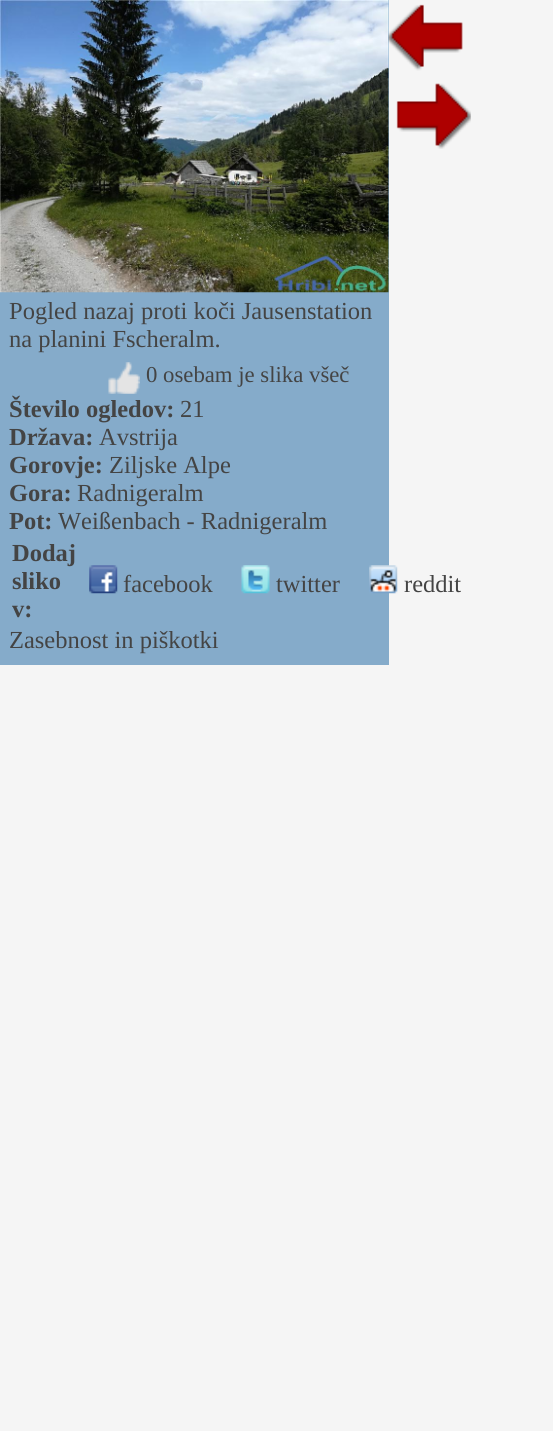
import math
import cairo

surface = cairo.ImageSurface(cairo.FORMAT_RGB24, 553, 1431)
cr = cairo.Context(surface)
options = cairo.FontOptions()
options.set_hint_metrics(cairo.HINT_METRICS_OFF)
options.set_hint_style(cairo.HINT_STYLE_NONE)
cr.set_font_options(options)
cr.set_miter_limit(4)


def rgb(code):
    cr.set_source_rgb(*(v / 255 for v in bytes.fromhex(code[-6:])))


def image(path, x, y, w, h):
    cr.save()
    cr.set_source_surface(cairo.ImageSurface.create_from_png(path), x, y)
    cr.rectangle(x, y, w, h)
    cr.fill()
    cr.restore()


rgb("#f5f5f5")
cr.paint()
rgb("#85abca")
cr.rectangle(0, 0, 389, 665)
cr.fill()
image("img/3.png", 0, 0, 389, 293)
image("img/1.png", 388, 4, 75, 67)
image("img/2.png", 396, 83, 75, 66)
image("img/4.png", 108, 362, 32, 32)
image("img/5.png", 89, 565, 29, 29)
image("img/6.png", 241, 565, 29, 29)
image("img/7.png", 369, 565, 29, 29)
cr.select_font_face("Liberation Serif")
cr.set_font_size(24.5)
rgb("#444444")
cr.move_to(9, 319)
cr.show_text("Pogled nazaj proti koči Jausenstation")
cr.move_to(9, 347)
cr.show_text("na planini Fscheralm.")
cr.set_font_size(22.75)
cr.move_to(146, 382)
cr.show_text("0 osebam je slika všeč")
cr.select_font_face("Liberation Serif", cairo.FONT_SLANT_NORMAL, cairo.FONT_WEIGHT_BOLD)
cr.set_font_size(24.5)
cr.move_to(9, 417)
cr.show_text("Število ogledov:")
cr.select_font_face("Liberation Serif")
cr.move_to(180, 417)
cr.show_text("21")
cr.select_font_face("Liberation Serif", cairo.FONT_SLANT_NORMAL, cairo.FONT_WEIGHT_BOLD)
cr.move_to(9, 445)
cr.show_text("Država:")
cr.select_font_face("Liberation Serif")
cr.move_to(99, 445)
cr.show_text("Avstrija")
cr.select_font_face("Liberation Serif", cairo.FONT_SLANT_NORMAL, cairo.FONT_WEIGHT_BOLD)
cr.move_to(9, 473)
cr.show_text("Gorovje:")
cr.select_font_face("Liberation Serif")
cr.move_to(109, 473)
cr.show_text("Ziljske Alpe")
cr.select_font_face("Liberation Serif", cairo.FONT_SLANT_NORMAL, cairo.FONT_WEIGHT_BOLD)
cr.move_to(9, 501)
cr.show_text("Gora:")
cr.select_font_face("Liberation Serif")
cr.move_to(77, 501)
cr.show_text("Radnigeralm")
cr.select_font_face("Liberation Serif", cairo.FONT_SLANT_NORMAL, cairo.FONT_WEIGHT_BOLD)
cr.move_to(9, 529)
cr.show_text("Pot:")
cr.select_font_face("Liberation Serif")
cr.move_to(58, 529)
cr.show_text("Weißenbach - Radnigeralm")
cr.select_font_face("Liberation Serif", cairo.FONT_SLANT_NORMAL, cairo.FONT_WEIGHT_BOLD)
for x, y, s in [
    (12, 561, "Dodaj"),
    (12, 589, "sliko"),
    (12, 617, "v:"),
]:
    cr.move_to(x, y)
    cr.show_text(s)
cr.select_font_face("Liberation Serif")
for x, y, s in [
    (123, 592, "facebook"),
    (276, 592, "twitter"),
    (404, 592, "reddit"),
    (9, 648, "Zasebnost in piškotki"),
]:
    cr.move_to(x, y)
    cr.show_text(s)
surface.write_to_png("page.png")
